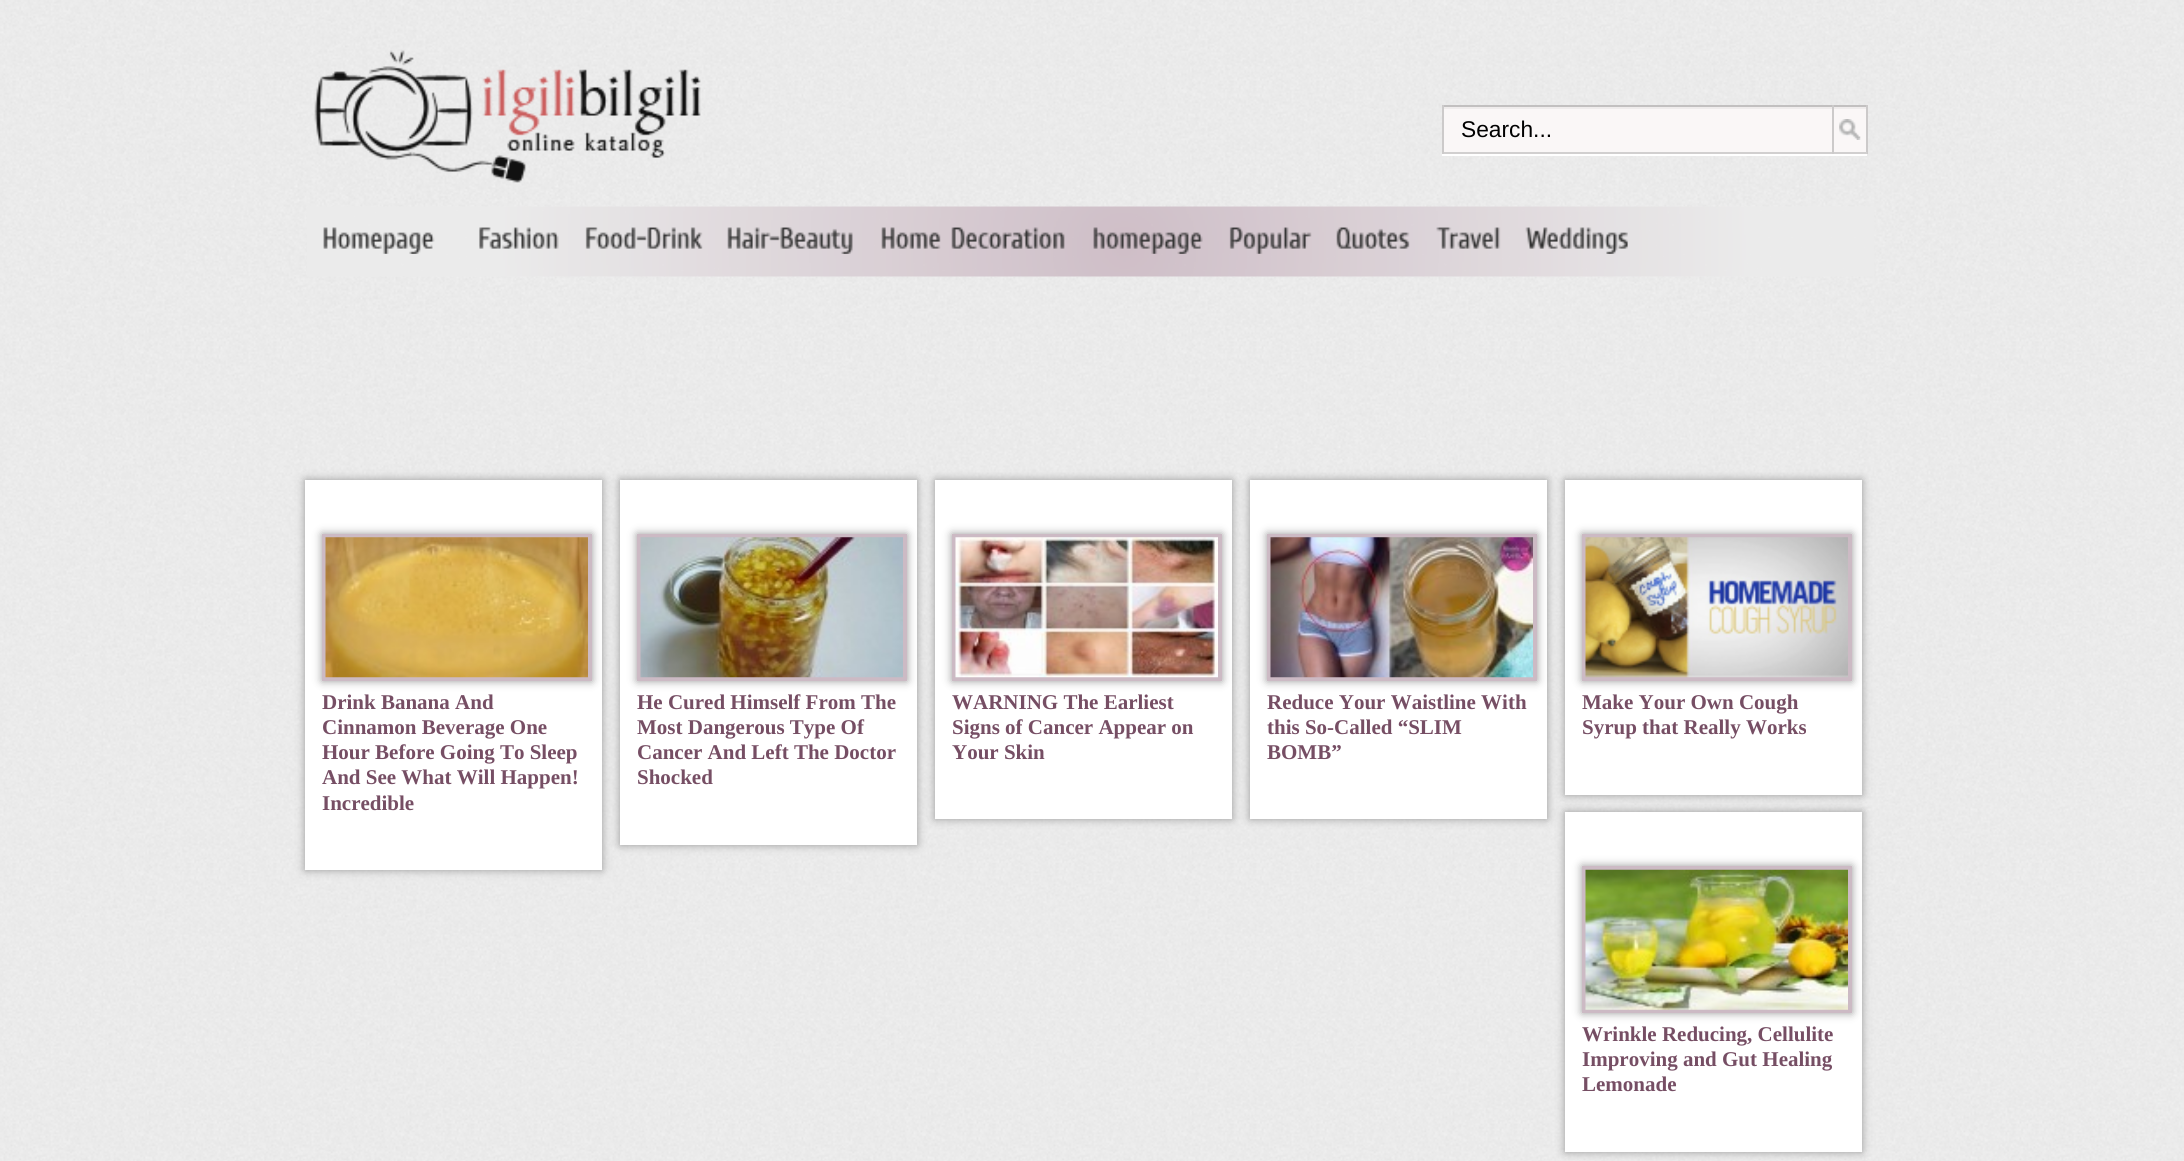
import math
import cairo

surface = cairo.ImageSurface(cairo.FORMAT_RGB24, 2184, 1161)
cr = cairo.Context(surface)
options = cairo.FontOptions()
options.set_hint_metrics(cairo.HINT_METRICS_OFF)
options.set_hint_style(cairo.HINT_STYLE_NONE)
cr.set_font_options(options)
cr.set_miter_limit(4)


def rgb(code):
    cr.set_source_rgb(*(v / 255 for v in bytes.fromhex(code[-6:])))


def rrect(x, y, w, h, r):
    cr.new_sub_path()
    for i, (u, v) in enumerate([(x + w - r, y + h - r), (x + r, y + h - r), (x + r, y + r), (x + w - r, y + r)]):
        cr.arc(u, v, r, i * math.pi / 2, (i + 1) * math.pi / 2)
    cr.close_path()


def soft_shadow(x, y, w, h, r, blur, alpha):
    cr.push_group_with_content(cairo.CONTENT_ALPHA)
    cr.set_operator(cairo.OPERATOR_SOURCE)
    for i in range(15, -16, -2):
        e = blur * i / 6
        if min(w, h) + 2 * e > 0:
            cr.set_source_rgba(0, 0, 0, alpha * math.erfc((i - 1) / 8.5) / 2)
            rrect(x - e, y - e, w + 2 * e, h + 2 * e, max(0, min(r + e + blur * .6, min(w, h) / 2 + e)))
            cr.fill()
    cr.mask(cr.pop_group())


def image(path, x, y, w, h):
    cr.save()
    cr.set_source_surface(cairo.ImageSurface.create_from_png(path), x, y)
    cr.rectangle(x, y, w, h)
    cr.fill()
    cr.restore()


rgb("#ffffff")
cr.paint()
image("img/1.png", 0, 0, 2184, 1161)
image("img/2.png", 314, 50, 387, 133)
for x, y, w, h, color in [
    (1442, 154, 392, 2, "#ffffff"),
    (1444, 109, 388, 43, "#faf7f7"),
    (1444, 107, 388, 2, "#efecec"),
    (1442, 105, 425, 2, "#c2c0c0"),
    (1442, 152, 392, 2, "#d1cfcf"),
    (1442, 105, 2, 49, "#cccaca"),
]:
    rgb(color)
    cr.rectangle(x, y, w, h)
    cr.fill()
rgb("#ffffff")
cr.new_path()
cr.move_to(1832, 107)
cr.line_to(1832, 156)
cr.line_to(1867, 156)
cr.line_to(1867, 154)
cr.line_to(1832, 154)
cr.close_path()
cr.fill()
rgb("#faf7f7")
cr.rectangle(1834, 109, 32, 43)
cr.fill()
image("img/3.png", 1839, 119, 22, 21)
for x, y, w, h, color in [
    (1834, 107, 32, 2, "#efecec"),
    (1866, 105, 2, 49, "#cccaca"),
    (1832, 152, 35, 2, "#d1cfcf"),
    (1832, 105, 2, 49, "#cccaca"),
]:
    rgb(color)
    cr.rectangle(x, y, w, h)
    cr.fill()
image("img/4.png", 307, 206, 1567, 71)
image("img/5.png", 323, 227, 112, 27)
image("img/6.png", 479, 227, 80, 22)
image("img/7.png", 585, 227, 118, 22)
image("img/8.png", 727, 227, 126, 27)
image("img/9.png", 881, 227, 60, 22)
image("img/10.png", 951, 227, 114, 22)
image("img/11.png", 1093, 227, 110, 27)
image("img/12.png", 1229, 227, 83, 27)
image("img/13.png", 1336, 227, 74, 22)
image("img/14.png", 1436, 227, 65, 22)
image("img/15.png", 1525, 227, 103, 27)
rgb("#999999")
soft_shadow(305, 480, 297, 390, 0, 4.5, 1)
rgb("#ffffff")
cr.rectangle(305, 480, 297, 390)
cr.fill()
rgb("#999999")
soft_shadow(322, 534, 270, 147, 0, 4.5, 1)
cr.rectangle(324, 536, 266, 143)
rgb("#ccbac4")
cr.set_line_width(4)
cr.stroke()
image("img/16.png", 325, 537, 263, 141)
rgb("#999999")
soft_shadow(620, 480, 297, 365, 0, 4.5, 1)
rgb("#ffffff")
cr.rectangle(620, 480, 297, 365)
cr.fill()
rgb("#999999")
soft_shadow(637, 534, 270, 147, 0, 4.5, 1)
cr.rectangle(639, 536, 266, 143)
rgb("#ccbac4")
cr.stroke()
image("img/17.png", 640, 537, 263, 141)
rgb("#999999")
soft_shadow(935, 480, 297, 339, 0, 4.5, 1)
rgb("#ffffff")
cr.rectangle(935, 480, 297, 339)
cr.fill()
rgb("#999999")
soft_shadow(952, 534, 270, 147, 0, 4.5, 1)
cr.rectangle(954, 536, 266, 143)
rgb("#ccbac4")
cr.stroke()
image("img/18.png", 955, 537, 263, 141)
rgb("#999999")
soft_shadow(1250, 480, 297, 339, 0, 4.5, 1)
rgb("#ffffff")
cr.rectangle(1250, 480, 297, 339)
cr.fill()
rgb("#999999")
soft_shadow(1267, 534, 270, 147, 0, 4.5, 1)
cr.rectangle(1269, 536, 266, 143)
rgb("#ccbac4")
cr.stroke()
image("img/19.png", 1270, 537, 263, 141)
rgb("#999999")
soft_shadow(1565, 480, 297, 315, 0, 4.5, 1)
rgb("#ffffff")
cr.rectangle(1565, 480, 297, 315)
cr.fill()
rgb("#999999")
soft_shadow(1582, 534, 270, 147, 0, 4.5, 1)
cr.rectangle(1584, 536, 266, 143)
rgb("#ccbac4")
cr.stroke()
image("img/20.png", 1585, 537, 263, 141)
rgb("#999999")
soft_shadow(1565, 812, 297, 340, 0, 4.5, 1)
rgb("#ffffff")
cr.rectangle(1565, 812, 297, 340)
cr.fill()
rgb("#999999")
soft_shadow(1582, 866, 270, 147, 0, 4.5, 1)
cr.rectangle(1584, 868, 266, 143)
rgb("#ccbac4")
cr.stroke()
image("img/21.png", 1585, 869, 263, 141)
cr.select_font_face("Liberation Sans")
cr.set_font_size(22.75)
rgb("#000000")
cr.move_to(1461, 137)
cr.show_text("Search...")
cr.select_font_face("Liberation Serif", cairo.FONT_SLANT_NORMAL, cairo.FONT_WEIGHT_BOLD)
cr.set_font_size(21)
rgb("#764e64")
for x, y, s in [
    (322, 709, "Drink Banana And"),
    (322, 734, "Cinnamon Beverage One"),
    (322, 759, "Hour Before Going To Sleep"),
    (322, 784, "And See What Will Happen!"),
    (322, 810, "Incredible"),
    (637, 709, "He Cured Himself From The"),
    (637, 734, "Most Dangerous Type Of"),
    (637, 759, "Cancer And Left The Doctor"),
    (637, 784, "Shocked"),
    (952, 709, "WARNING The Earliest"),
    (952, 734, "Signs of Cancer Appear on"),
    (952, 759, "Your Skin"),
    (1267, 709, "Reduce Your Waistline With"),
    (1267, 734, "this So-Called “SLIM"),
    (1267, 759, "BOMB”"),
    (1582, 709, "Make Your Own Cough"),
    (1582, 734, "Syrup that Really Works"),
    (1582, 1041, "Wrinkle Reducing, Cellulite"),
    (1582, 1066, "Improving and Gut Healing"),
    (1582, 1091, "Lemonade"),
]:
    cr.move_to(x, y)
    cr.show_text(s)
surface.write_to_png("page.png")
